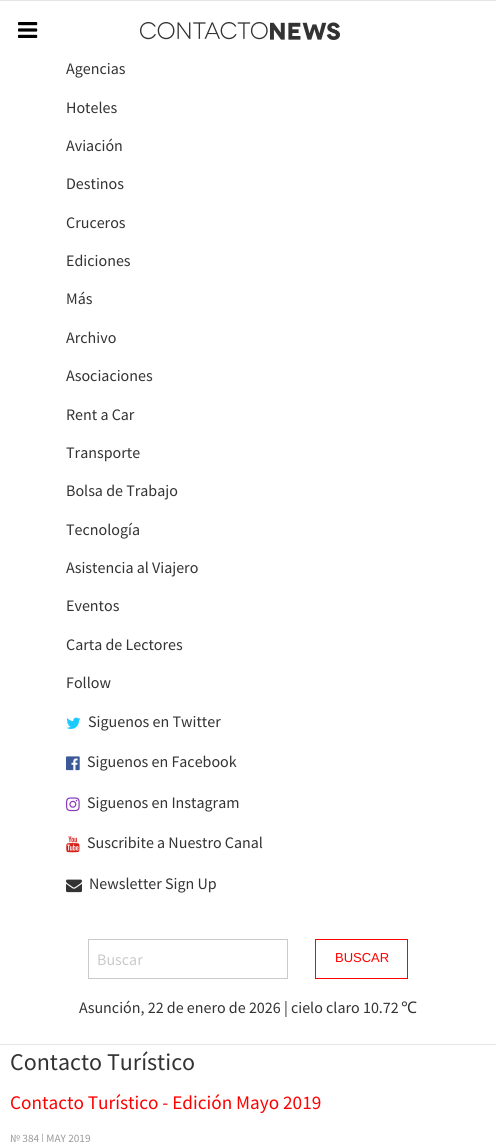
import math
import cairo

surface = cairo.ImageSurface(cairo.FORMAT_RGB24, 496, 1142)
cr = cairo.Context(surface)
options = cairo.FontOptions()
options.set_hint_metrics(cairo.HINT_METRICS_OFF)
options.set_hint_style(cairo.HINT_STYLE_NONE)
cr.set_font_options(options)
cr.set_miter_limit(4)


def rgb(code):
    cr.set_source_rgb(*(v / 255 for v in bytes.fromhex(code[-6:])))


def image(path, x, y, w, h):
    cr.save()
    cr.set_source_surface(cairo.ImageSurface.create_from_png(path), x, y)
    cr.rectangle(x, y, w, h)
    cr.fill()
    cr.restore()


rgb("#ffffff")
cr.paint()
rgb("#e6e6e6")
cr.rectangle(0, 0, 496, 1)
cr.fill()
cr.rectangle(0, 1044, 496, 1)
cr.fill()
image("img/1.png", 18, 22, 20, 16)
image("img/2.png", 140, 22, 200, 18)
image("img/3.png", 66, 717, 15, 12)
image("img/4.png", 66, 756, 14, 15)
image("img/5.png", 66, 797, 14, 15)
image("img/6.png", 66, 836, 14, 17)
image("img/7.png", 66, 879, 16, 14)
cr.rectangle(88.5, 939.5, 199, 39)
rgb("#cacaca")
cr.set_line_width(1)
cr.stroke()
cr.rectangle(315.5, 939.5, 92, 39)
rgb("#ff0000")
cr.stroke()
cr.select_font_face("Source Sans Pro")
cr.set_font_size(16)
rgb("#333333")
for x, y, s in [
    (66, 74, "Agencias"),
    (66, 113, "Hoteles"),
    (66, 151, "Aviación"),
    (66, 189, "Destinos"),
    (66, 228, "Cruceros"),
    (66, 266, "Ediciones"),
    (66, 304, "Más"),
    (66, 343, "Archivo"),
    (66, 381, "Asociaciones"),
    (66, 420, "Rent a Car"),
    (66, 458, "Transporte"),
    (66, 496, "Bolsa de Trabajo"),
    (66, 535, "Tecnología"),
    (66, 573, "Asistencia al Viajero"),
    (66, 611, "Eventos"),
    (66, 650, "Carta de Lectores"),
    (66, 688, "Follow"),
    (88, 727, "Siguenos en Twitter"),
    (87, 767, "Siguenos en Facebook"),
    (87, 808, "Siguenos en Instagram"),
    (87, 848, "Suscribite a Nuestro Canal"),
    (89, 889, "Newsletter Sign Up"),
]:
    cr.move_to(x, y)
    cr.show_text(s)
rgb("#cacaca")
cr.move_to(97, 965)
cr.show_text("Buscar")
cr.select_font_face("Liberation Sans")
cr.set_font_size(13)
rgb("#ff0000")
cr.move_to(335, 962)
cr.show_text("BUSCAR")
cr.select_font_face("Source Sans Pro")
cr.set_font_size(16)
rgb("#333333")
cr.move_to(79, 1013)
cr.show_text("Asunción, 22 de enero de 2026 | cielo claro 10.72")
cr.select_font_face("Noto Sans")
cr.move_to(401, 1013)
cr.show_text("℃")
cr.select_font_face("Source Sans Pro")
cr.set_font_size(24)
cr.move_to(10, 1070)
cr.show_text("Contacto Turístico")
cr.set_font_size(19.25)
rgb("#ff0000")
cr.move_to(10, 1109)
cr.show_text("Contacto Turístico - Edición Mayo 2019")
cr.set_font_size(11.25)
rgb("#999999")
cr.move_to(10, 1142)
cr.show_text("№ 384 | MAY 2019")
surface.write_to_png("page.png")
